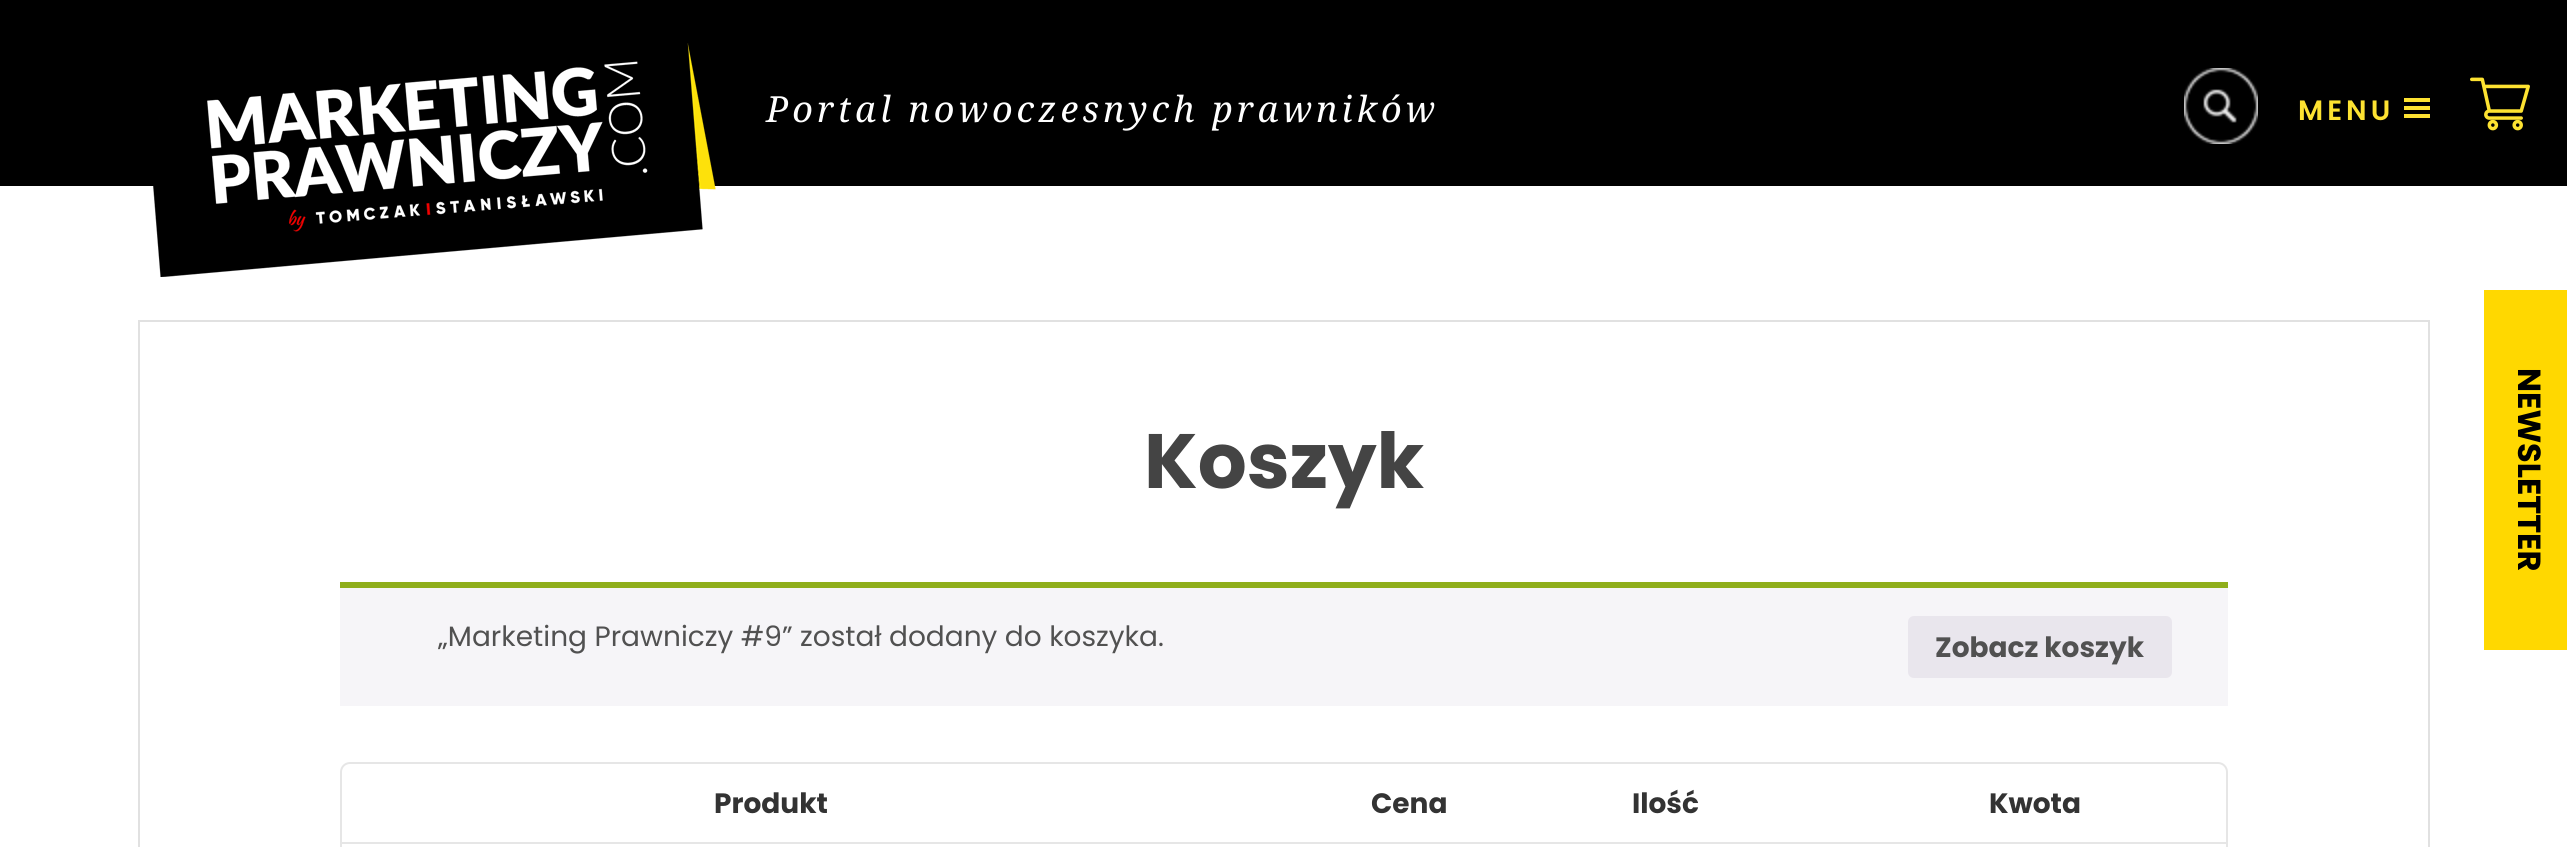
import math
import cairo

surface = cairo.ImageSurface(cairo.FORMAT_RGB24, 2567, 847)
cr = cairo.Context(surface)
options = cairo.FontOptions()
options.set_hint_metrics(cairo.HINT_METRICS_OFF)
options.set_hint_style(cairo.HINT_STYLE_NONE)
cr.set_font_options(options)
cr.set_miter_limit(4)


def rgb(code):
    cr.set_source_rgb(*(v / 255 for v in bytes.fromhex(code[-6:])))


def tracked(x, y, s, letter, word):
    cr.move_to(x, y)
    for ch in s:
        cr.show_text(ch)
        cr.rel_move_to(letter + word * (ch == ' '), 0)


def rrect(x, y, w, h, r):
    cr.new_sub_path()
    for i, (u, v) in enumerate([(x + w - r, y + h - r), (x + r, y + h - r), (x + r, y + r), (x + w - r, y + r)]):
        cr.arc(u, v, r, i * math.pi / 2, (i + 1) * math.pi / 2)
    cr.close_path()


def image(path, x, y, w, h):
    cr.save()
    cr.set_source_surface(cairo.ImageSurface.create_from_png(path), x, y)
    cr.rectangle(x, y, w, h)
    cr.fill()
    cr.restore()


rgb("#ffffff")
cr.paint()
rgb("#000000")
cr.rectangle(0, 0, 2567, 186)
cr.fill()
image("img/1.png", 153, 43, 563, 234)
image("img/2.png", 2184, 68, 74, 76)
for x, y, w, h, color in [
    (2404, 98, 26, 4, "#fde231"),
    (2404, 106, 26, 4, "#fde231"),
    (2404, 114, 26, 4, "#fde231"),
]:
    rgb(color)
    cr.rectangle(x, y, w, h)
    cr.fill()
image("img/3.png", 2470, 77, 60, 54)
cr.rectangle(139, 321, 2290, 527)
rgb("#e1e1e1")
cr.stroke()
rgb("#f6f5f8")
cr.rectangle(340, 588, 1888, 118)
cr.fill()
rgb("#8fae1b")
cr.rectangle(340, 582, 1888, 6)
cr.fill()
rgb("#e9e6ed")
rrect(1908, 616, 264, 62, 6)
cr.fill()
rrect(341, 763, 1886, 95, 9)
rgb("#e6e6e6")
cr.stroke()
cr.rectangle(342, 842, 1884, 2)
cr.fill()
rgb("#ffd800")
cr.rectangle(2484, 290, 83, 360)
cr.fill()
cr.select_font_face("Noto Serif", cairo.FONT_SLANT_ITALIC)
cr.set_font_size(36)
rgb("#ffffff")
tracked(766, 122, "Portal nowoczesnych prawników", 4, 0)
cr.select_font_face("Poppins SemiBold")
cr.set_font_size(28)
rgb("#fde231")
tracked(2298, 120, "MENU", 4, 0)
cr.select_font_face("Poppins", cairo.FONT_SLANT_NORMAL, cairo.FONT_WEIGHT_BOLD)
cr.set_font_size(77)
rgb("#444444")
cr.move_to(1144, 488)
cr.show_text("Koszyk")
cr.select_font_face("Poppins")
cr.set_font_size(28)
rgb("#515151")
cr.move_to(438, 646)
cr.show_text("„Marketing Prawniczy #9” został dodany do koszyka.")
cr.select_font_face("Poppins", cairo.FONT_SLANT_NORMAL, cairo.FONT_WEIGHT_BOLD)
cr.move_to(1935, 657)
cr.show_text("Zobacz koszyk")
rgb("#333333")
for x, y, s in [
    (714, 813, "Produkt"),
    (1371, 813, "Cena"),
    (1632, 813, "Ilość"),
    (1989, 813, "Kwota"),
]:
    cr.move_to(x, y)
    cr.show_text(s)
cr.set_font_size(32)
rgb("#000000")
cr.save()
cr.translate(2518, 368)
cr.rotate(90 * math.pi / 180)
cr.move_to(0, 0)
cr.show_text("NEWSLETTER")
cr.restore()
surface.write_to_png("page.png")
